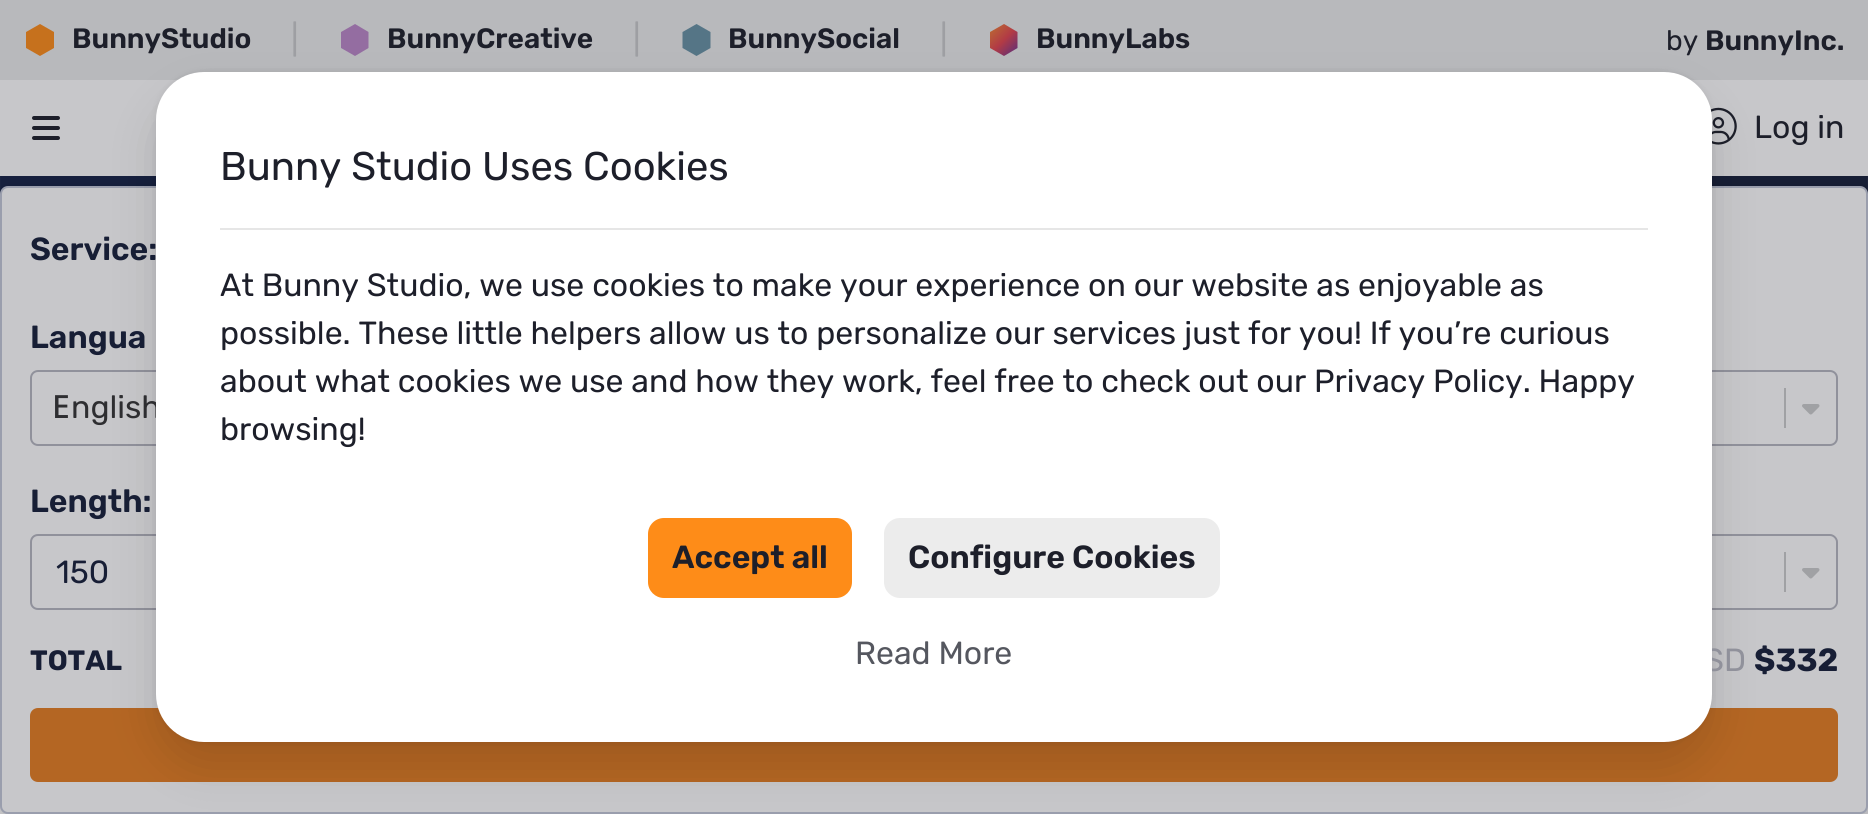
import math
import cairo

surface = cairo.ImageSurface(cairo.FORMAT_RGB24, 1868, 814)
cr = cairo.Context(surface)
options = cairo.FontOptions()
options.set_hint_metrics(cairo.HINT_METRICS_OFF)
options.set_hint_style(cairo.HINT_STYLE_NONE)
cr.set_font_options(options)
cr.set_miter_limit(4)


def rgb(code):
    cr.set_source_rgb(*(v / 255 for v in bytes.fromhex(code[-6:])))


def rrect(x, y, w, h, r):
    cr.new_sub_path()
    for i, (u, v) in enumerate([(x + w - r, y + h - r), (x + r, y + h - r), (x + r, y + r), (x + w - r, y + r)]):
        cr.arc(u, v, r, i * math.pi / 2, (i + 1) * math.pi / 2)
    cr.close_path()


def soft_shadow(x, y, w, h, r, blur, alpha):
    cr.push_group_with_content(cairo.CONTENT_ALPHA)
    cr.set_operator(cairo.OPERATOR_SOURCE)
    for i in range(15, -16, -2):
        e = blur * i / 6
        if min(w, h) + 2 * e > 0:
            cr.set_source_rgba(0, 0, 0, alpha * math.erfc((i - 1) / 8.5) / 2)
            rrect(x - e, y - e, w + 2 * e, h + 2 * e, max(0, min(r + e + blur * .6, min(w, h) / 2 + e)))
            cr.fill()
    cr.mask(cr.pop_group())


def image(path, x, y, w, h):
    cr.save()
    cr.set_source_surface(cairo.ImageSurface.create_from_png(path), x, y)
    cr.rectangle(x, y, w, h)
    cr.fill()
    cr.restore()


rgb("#c7c7ca")
cr.paint()
rgb("#b8b9bc")
cr.rectangle(0, 0, 1868, 80)
cr.fill()
rgb("#c6711d")
cr.new_path()
cr.move_to(40, 24)
cr.line_to(54, 32)
cr.line_to(54, 48)
cr.line_to(40, 56)
cr.line_to(26, 48)
cr.line_to(26, 32)
cr.close_path()
cr.fill()
rgb("#946da1")
cr.new_path()
cr.move_to(355, 24)
cr.line_to(368.5, 32)
cr.line_to(368.5, 48)
cr.line_to(355, 56)
cr.line_to(341, 48)
cr.line_to(341, 32)
cr.close_path()
cr.fill()
rgb("#557586")
cr.new_path()
cr.move_to(696.5, 24)
cr.line_to(710.5, 32)
cr.line_to(710.5, 48)
cr.line_to(696.5, 56)
cr.line_to(682.5, 48)
cr.line_to(682.5, 32)
cr.close_path()
cr.fill()
gradient = cairo.LinearGradient(988, 24, 1020, 56)
gradient.add_color_stop_rgba(0, 0.741, 0.447, 0.184, 1)
gradient.add_color_stop_rgba(0.5, 0.698, 0.231, 0.271, 1)
gradient.add_color_stop_rgba(1, 0.306, 0.176, 0.514, 1)
cr.set_source(gradient)
cr.new_path()
cr.move_to(1004, 24)
cr.line_to(1017.5, 32)
cr.line_to(1017.5, 48)
cr.line_to(1004, 56)
cr.line_to(990, 48)
cr.line_to(990, 32)
cr.close_path()
cr.fill()
rgb("#1d1f2a")
rrect(32, 126, 28, 4, 2)
cr.fill()
rrect(32, 116, 28, 4, 2)
cr.fill()
rrect(32, 136, 28, 4, 2)
cr.fill()
image("img/1.png", 1710, 107, 27, 38)
image("img/2.png", 0, 176, 1868, 18)
rgb("#07080b")
soft_shadow(2, 188, 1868, 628, 8, 5, 0.12)
rgb("#c7c7ca")
rrect(1, 187, 1866, 626, 7)
cr.fill_preserve()
rgb("#9a9ead")
cr.stroke()
rrect(31, 371, 1806, 74, 7)
rgb("#90919b")
cr.stroke()
rgb("#a0a1a4")
cr.rectangle(1784, 388, 2, 40)
cr.fill()
image("img/3.png", 1802, 404, 18, 11)
cr.new_path()
cr.move_to(38, 535)
cr.line_to(753, 535)
cr.line_to(753, 609)
cr.line_to(38, 609)
cr.curve_to(34, 609, 31, 606, 31, 602)
cr.line_to(31, 542)
cr.curve_to(31, 538, 34, 535, 38, 535)
cr.close_path()
rgb("#90919b")
cr.stroke()
cr.set_fill_rule(cairo.FILL_RULE_EVEN_ODD)
cr.new_path()
cr.move_to(754, 534)
cr.line_to(1830, 534)
cr.curve_to(1834, 534, 1838, 538, 1838, 542)
cr.line_to(1838, 602)
cr.curve_to(1838, 606, 1834, 610, 1830, 610)
cr.line_to(754, 610)
cr.close_path()
cr.move_to(754, 536)
cr.line_to(1830, 536)
cr.curve_to(1833, 536, 1836, 539, 1836, 542)
cr.line_to(1836, 602)
cr.curve_to(1836, 605, 1833, 608, 1830, 608)
cr.line_to(754, 608)
cr.close_path()
cr.fill()
rgb("#a0a1a4")
cr.rectangle(1784, 552, 2, 40)
cr.fill()
image("img/3.png", 1802, 568, 18, 11)
rgb("#b46623")
rrect(32, 710, 1804, 70, 6)
cr.fill_preserve()
cr.set_line_width(4)
cr.stroke()
rgb("#000000")
soft_shadow(156, 96, 1556, 670, 48, 24, 0.12)
soft_shadow(156, 72, 1556, 670, 48, 4, 0.08)
cr.select_font_face("Rubik SemiBold")
cr.set_font_size(28)
rgb("#1d1f2a")
cr.move_to(72, 48)
cr.show_text("BunnyStudio")
cr.select_font_face("Rubik")
cr.set_font_size(32)
rgb("#9e9fa3")
cr.move_to(291, 50)
cr.show_text("|")
cr.select_font_face("Rubik SemiBold")
cr.set_font_size(28)
rgb("#1d1f2a")
cr.move_to(387, 48)
cr.show_text("BunnyCreative")
cr.select_font_face("Rubik")
cr.set_font_size(32)
rgb("#9e9fa3")
cr.move_to(633, 50)
cr.show_text("|")
cr.select_font_face("Rubik SemiBold")
cr.set_font_size(28)
rgb("#1d1f2a")
cr.move_to(728, 48)
cr.show_text("BunnySocial")
cr.select_font_face("Rubik")
cr.set_font_size(32)
rgb("#9e9fa3")
cr.move_to(940, 50)
cr.show_text("|")
cr.select_font_face("Rubik SemiBold")
cr.set_font_size(28)
rgb("#1d1f2a")
cr.move_to(1036, 48)
cr.show_text("BunnyLabs")
cr.select_font_face("Rubik")
cr.move_to(1666, 50)
cr.show_text("by")
cr.select_font_face("Rubik SemiBold")
cr.move_to(1705, 50)
cr.show_text("BunnyInc.")
cr.select_font_face("Rubik")
cr.set_font_size(32)
cr.move_to(1754, 138)
cr.show_text("Log in")
cr.select_font_face("Rubik SemiBold")
rgb("#171e35")
cr.move_to(30, 260)
cr.show_text("Service:")
cr.move_to(30, 348)
cr.show_text("Langua")
cr.select_font_face("Noto Sans Medium")
rgb("#2e2e31")
cr.move_to(52, 418)
cr.show_text("E")
cr.select_font_face("Rubik")
cr.move_to(71, 418)
cr.show_text("nglish")
cr.select_font_face("Rubik SemiBold")
rgb("#171e35")
cr.move_to(30, 512)
cr.show_text("Length:")
cr.select_font_face("Rubik")
cr.move_to(56, 583)
cr.show_text("150")
cr.select_font_face("Rubik", cairo.FONT_SLANT_NORMAL, cairo.FONT_WEIGHT_BOLD)
cr.set_font_size(28)
cr.move_to(30, 670)
cr.show_text("TOTAL")
cr.select_font_face("Rubik")
cr.set_font_size(32)
rgb("#90919b")
cr.move_to(1704, 671)
cr.show_text("SD")
cr.select_font_face("Rubik", cairo.FONT_SLANT_NORMAL, cairo.FONT_WEIGHT_BOLD)
rgb("#171e35")
cr.move_to(1754, 671)
cr.show_text("$332")
rgb("#ffffff")
rrect(156, 72, 1556, 670, 48)
cr.fill()
cr.select_font_face("Rubik")
cr.set_font_size(40)
rgb("#1d1f2a")
cr.move_to(220, 180)
cr.show_text("Bunny Studio Uses Cookies")
rgb("#e6e6e6")
cr.rectangle(220, 228, 1428, 2)
cr.fill()
cr.set_font_size(32)
rgb("#1d1f2a")
for x, y, s in [
    (220, 296, "At Bunny Studio, we use cookies to make your experience on our website as enjoyable as"),
    (220, 344, "possible. These little helpers allow us to personalize our services just for you! If you’re curious"),
    (220, 392, "about what cookies we use and how they work, feel free to check out our Privacy Policy. Happy"),
    (220, 440, "browsing!"),
]:
    cr.move_to(x, y)
    cr.show_text(s)
rgb("#fe8c18")
rrect(648, 518, 204, 80, 16)
cr.fill()
cr.select_font_face("Rubik SemiBold")
rgb("#1d1f2a")
cr.move_to(672, 568)
cr.show_text("Accept all")
rgb("#ececec")
rrect(884, 518, 336, 80, 16)
cr.fill()
rgb("#1d1f2a")
cr.move_to(908, 568)
cr.show_text("Configure Cookies")
cr.select_font_face("Rubik")
rgb("#55575f")
cr.move_to(855, 664)
cr.show_text("Read More")
surface.write_to_png("page.png")
